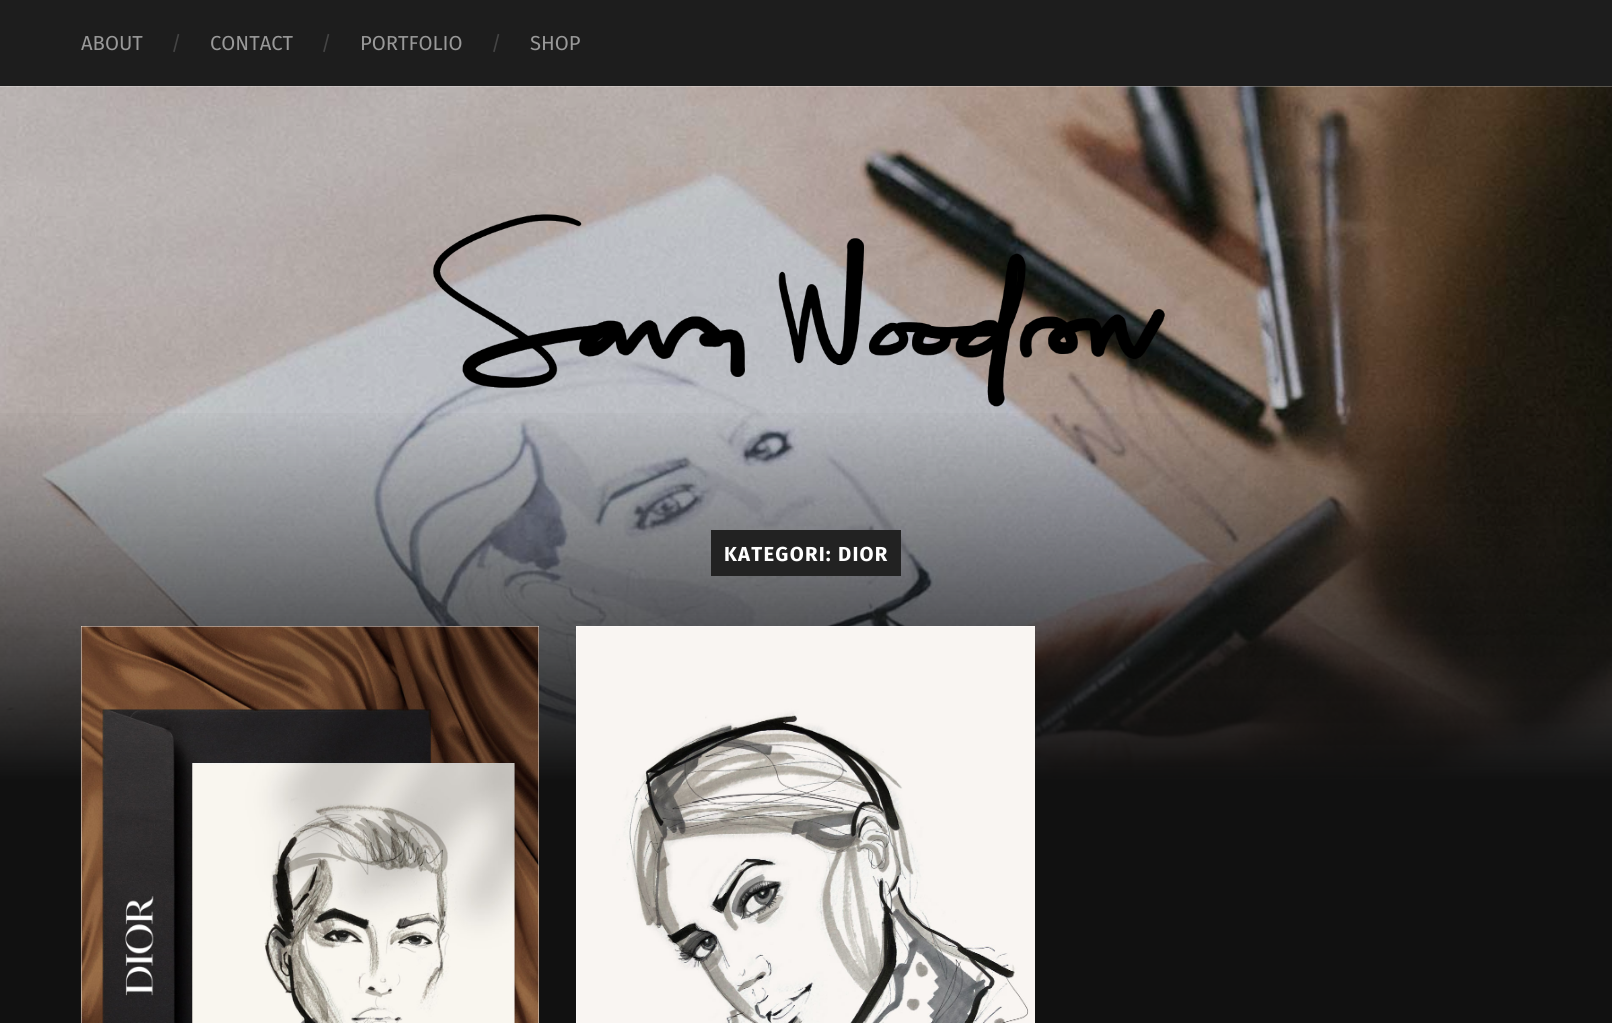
import math
import cairo

surface = cairo.ImageSurface(cairo.FORMAT_RGB24, 1612, 1023)
cr = cairo.Context(surface)
options = cairo.FontOptions()
options.set_hint_metrics(cairo.HINT_METRICS_OFF)
options.set_hint_style(cairo.HINT_STYLE_NONE)
cr.set_font_options(options)
cr.set_miter_limit(4)


def rgb(code):
    cr.set_source_rgb(*(v / 255 for v in bytes.fromhex(code[-6:])))


def tracked(x, y, s, letter, word):
    cr.move_to(x, y)
    for ch in s:
        cr.show_text(ch)
        cr.rel_move_to(letter + word * (ch == ' '), 0)


def image(path, x, y, w, h):
    cr.save()
    cr.set_source_surface(cairo.ImageSurface.create_from_png(path), x, y)
    cr.rectangle(x, y, w, h)
    cr.fill()
    cr.restore()


rgb("#ffffff")
cr.paint()
rgb("#1d1d1d")
cr.rectangle(0, 0, 1612, 86)
cr.fill()
image("img/1.png", 0, 86, 1612, 692)
image("img/2.png", 433, 214, 732, 193)
gradient = cairo.LinearGradient(806, 405, 806, 780)
gradient.add_color_stop_rgba(0, 0.067, 0.067, 0.067, 0)
gradient.add_color_stop_rgba(1, 0.067, 0.067, 0.067, 1)
cr.set_source(gradient)
cr.rectangle(0, 413, 1612, 367)
cr.fill()
for x, y, w, h, color in [
    (711, 530, 190, 46, "#222222"),
    (0, 780, 1612, 243, "#111111"),
    (81, 626, 458, 397, "#ffffff"),
]:
    rgb(color)
    cr.rectangle(x, y, w, h)
    cr.fill()
image("img/3.png", 81, 626, 458, 397)
cr.rectangle(576, 626, 459, 397)
cr.fill()
image("img/4.png", 576, 626, 459, 397)
cr.select_font_face("Fira Sans")
cr.set_font_size(20.25)
rgb("#999999")
cr.move_to(81, 50)
cr.show_text("ABOUT")
cr.set_font_size(20)
rgb("#444444")
cr.move_to(171, 50)
cr.show_text("/")
cr.set_font_size(20.25)
rgb("#999999")
cr.move_to(210, 50)
cr.show_text("CONTACT")
cr.set_font_size(20)
rgb("#444444")
cr.move_to(321, 50)
cr.show_text("/")
cr.set_font_size(20.25)
rgb("#999999")
cr.move_to(360, 50)
cr.show_text("PORTFOLIO")
cr.set_font_size(20)
rgb("#444444")
cr.move_to(491, 50)
cr.show_text("/")
cr.set_font_size(20.25)
rgb("#999999")
cr.move_to(530, 50)
cr.show_text("SHOP")
cr.select_font_face("Fira Sans", cairo.FONT_SLANT_NORMAL, cairo.FONT_WEIGHT_BOLD)
rgb("#ffffff")
tracked(724, 561, "KATEGORI: DIOR", 1.25, 0)
surface.write_to_png("page.png")
